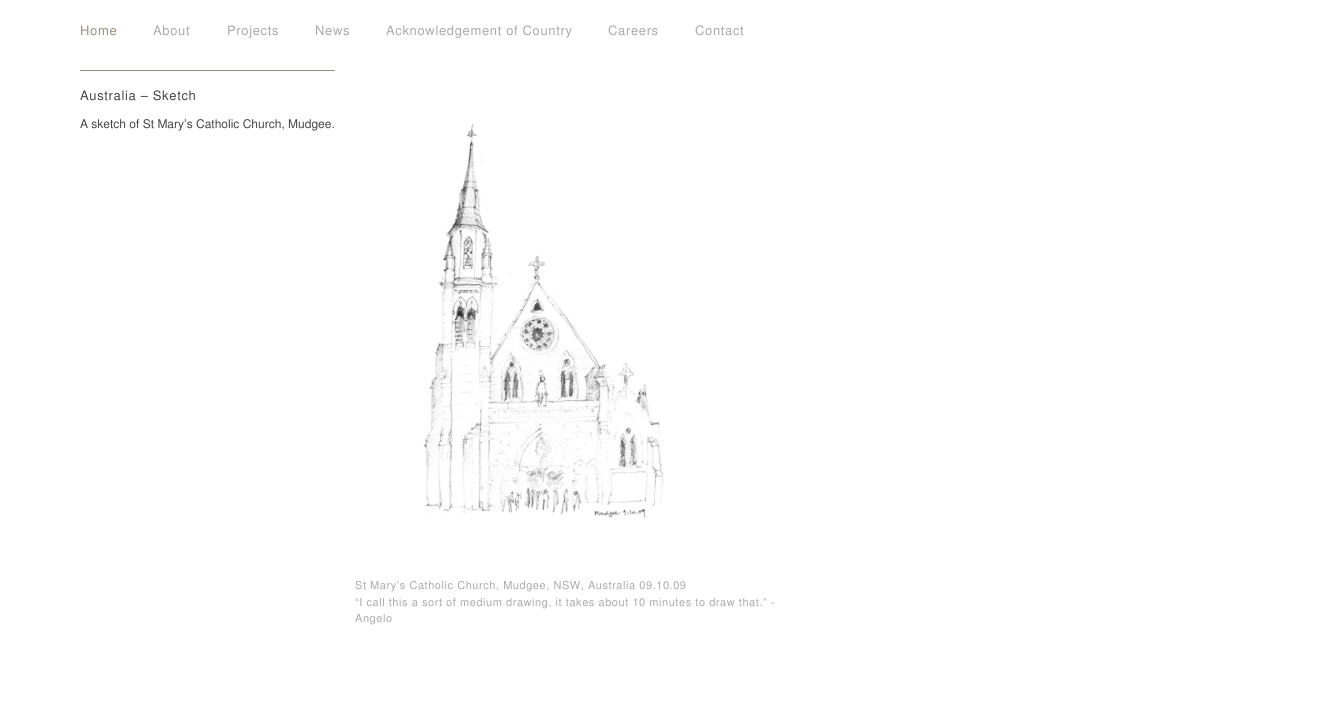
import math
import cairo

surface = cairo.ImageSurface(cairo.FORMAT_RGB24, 1317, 715)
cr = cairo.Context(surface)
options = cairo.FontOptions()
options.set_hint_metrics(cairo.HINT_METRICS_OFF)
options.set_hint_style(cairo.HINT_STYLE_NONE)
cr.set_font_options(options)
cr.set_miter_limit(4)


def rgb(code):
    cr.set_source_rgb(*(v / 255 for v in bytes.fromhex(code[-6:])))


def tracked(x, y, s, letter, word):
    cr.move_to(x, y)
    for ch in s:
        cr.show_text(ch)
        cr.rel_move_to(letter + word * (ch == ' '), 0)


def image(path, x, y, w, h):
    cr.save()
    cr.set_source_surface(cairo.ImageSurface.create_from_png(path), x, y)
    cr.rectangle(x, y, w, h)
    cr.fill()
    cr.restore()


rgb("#ffffff")
cr.paint()
rgb("#9c8f82")
cr.rectangle(80, 70, 255, 1)
cr.fill()
image("img/1.png", 423, 124, 241, 394)
cr.select_font_face("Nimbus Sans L")
cr.set_font_size(13)
tracked(80, 35, "Home", 0.65, 0)
rgb("#aaaaaa")
for x, y, s in [
    (153, 35, "About"),
    (227, 35, "Projects"),
    (315, 35, "News"),
    (386, 35, "Acknowledgement of Country"),
    (608, 35, "Careers"),
    (695, 35, "Contact"),
]:
    tracked(x, y, s, 0.65, 0)
rgb("#444444")
tracked(80, 100, "Australia – Sketch", 0.65, 0)
cr.set_font_size(12)
cr.move_to(80, 128)
cr.show_text("A sketch of St Mary’s Catholic Church, Mudgee.")
cr.set_font_size(11)
rgb("#aaaaaa")
for x, y, s in [
    (355, 589, "St Mary’s Catholic Church, Mudgee, NSW, Australia 09.10.09"),
    (355, 606, "“I call this a sort of medium drawing, it takes about 10 minutes to draw that.” -"),
    (355, 622, "Angelo"),
]:
    tracked(x, y, s, 0.55, 0)
surface.write_to_png("page.png")
